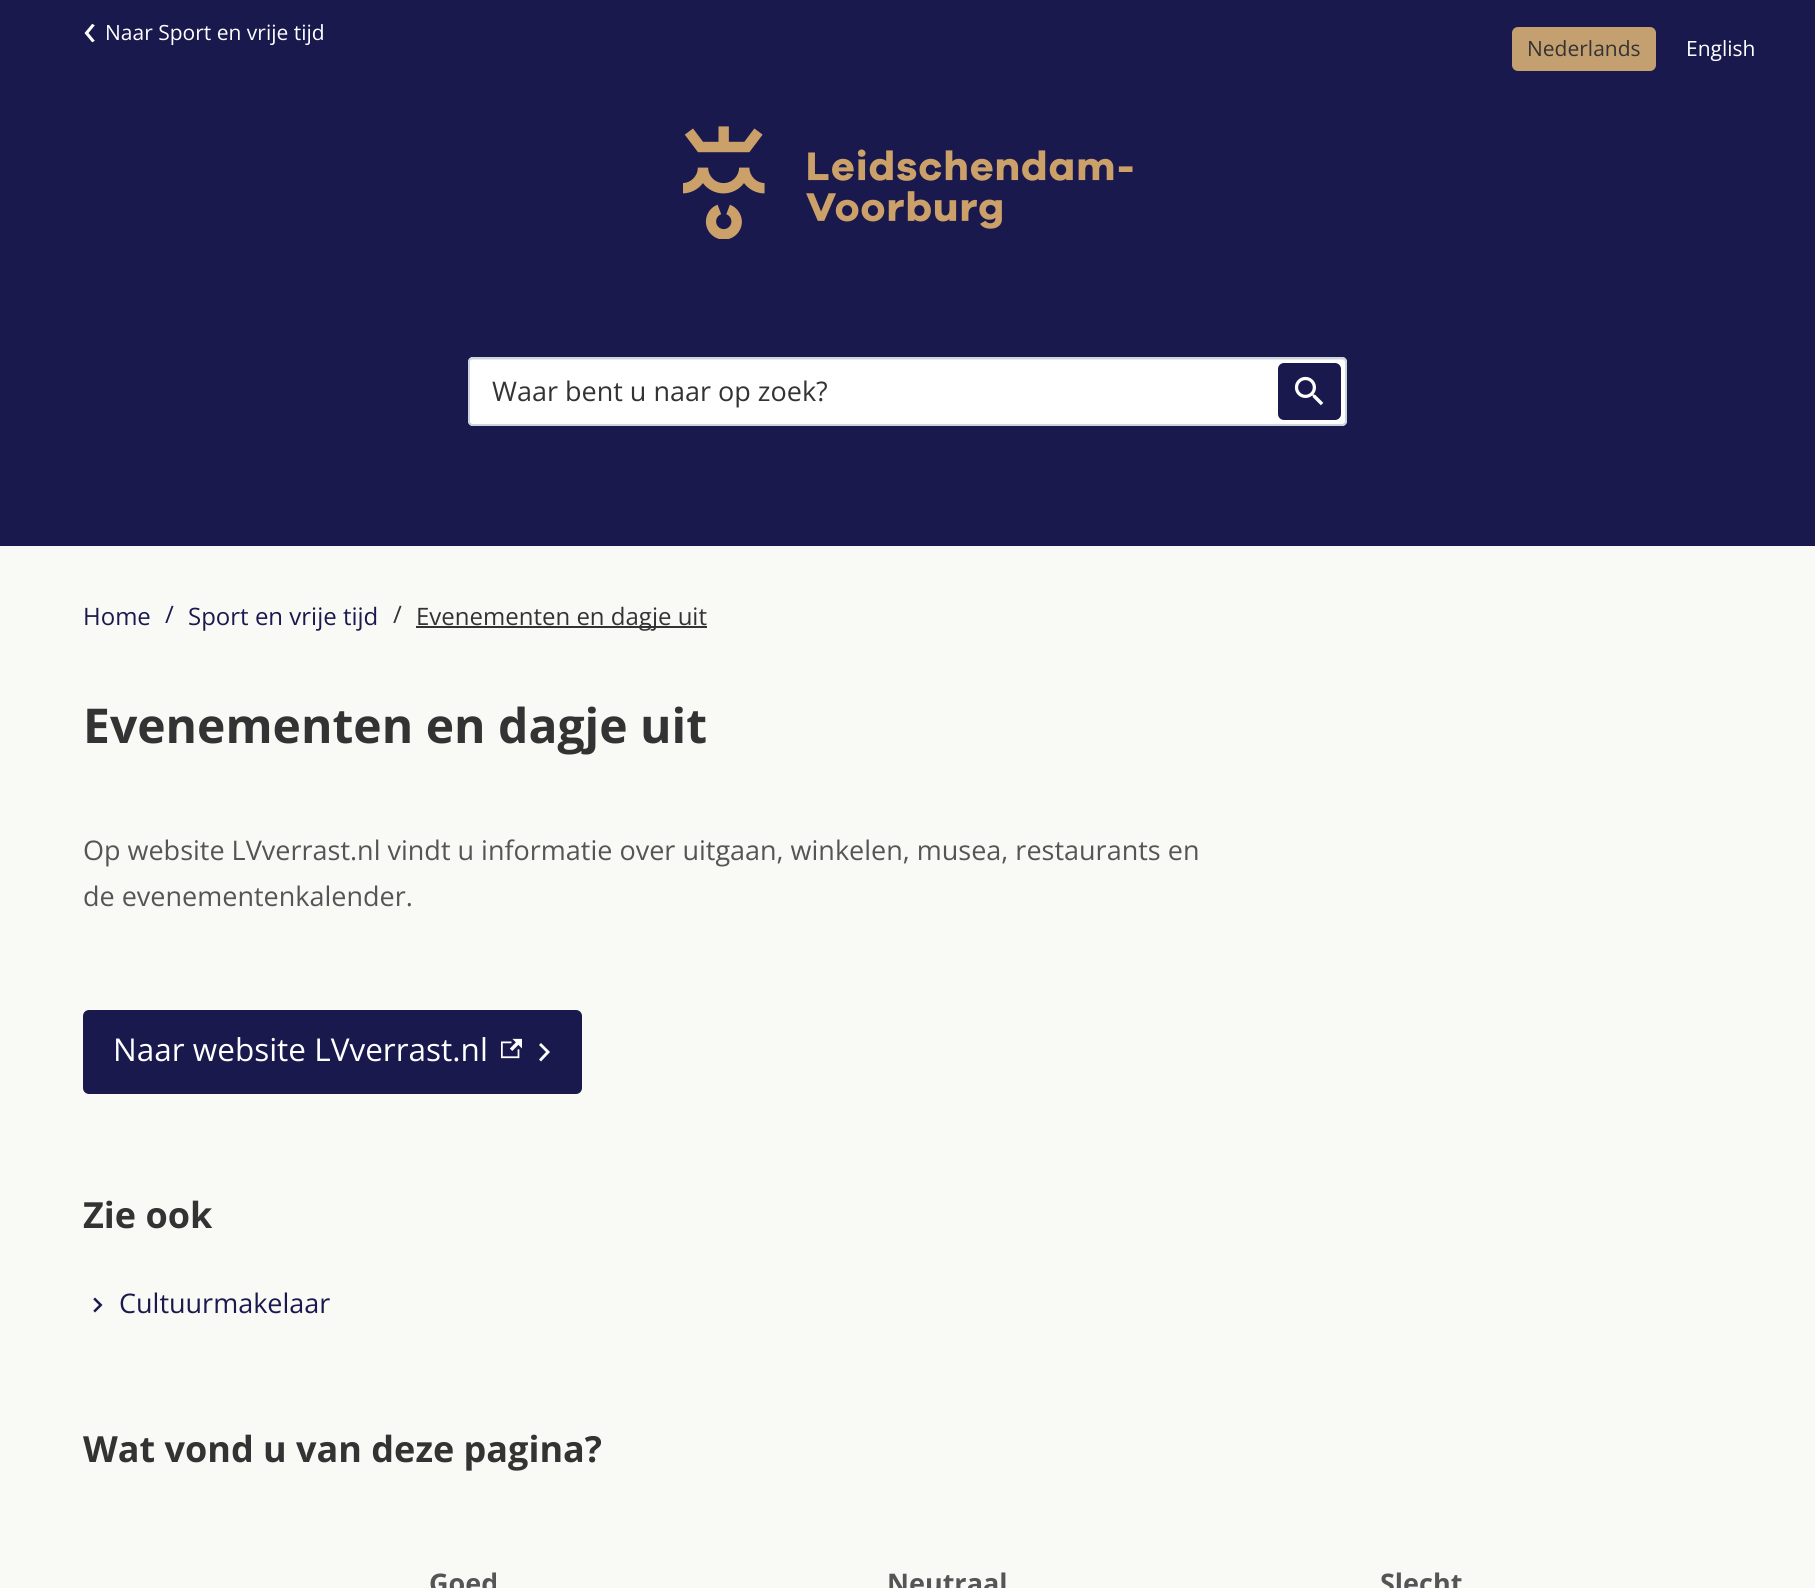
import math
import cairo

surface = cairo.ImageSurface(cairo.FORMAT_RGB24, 1815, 1588)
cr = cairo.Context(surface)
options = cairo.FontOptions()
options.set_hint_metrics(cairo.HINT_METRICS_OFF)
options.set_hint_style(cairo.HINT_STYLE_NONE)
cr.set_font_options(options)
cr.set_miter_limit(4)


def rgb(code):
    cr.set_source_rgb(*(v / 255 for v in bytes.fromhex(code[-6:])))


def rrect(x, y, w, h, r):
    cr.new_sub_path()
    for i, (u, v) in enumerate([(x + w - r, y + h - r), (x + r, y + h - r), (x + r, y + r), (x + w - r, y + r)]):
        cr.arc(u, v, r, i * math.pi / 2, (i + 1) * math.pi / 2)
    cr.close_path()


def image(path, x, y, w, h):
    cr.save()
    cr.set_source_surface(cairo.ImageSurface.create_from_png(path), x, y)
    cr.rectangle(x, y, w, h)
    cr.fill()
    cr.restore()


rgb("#f9f9f6")
cr.paint()
rgb("#1a194e")
cr.rectangle(0, 0, 1815, 546)
cr.fill()
image("img/1.png", 683, 126, 450, 113)
rgb("#ffffff")
rrect(468, 357, 879, 69, 5)
cr.fill()
rgb("#ebebeb")
cr.new_path()
cr.move_to(472, 360)
cr.line_to(1342, 360)
cr.curve_to(1344, 360, 1346, 361, 1346, 363)
cr.curve_to(1346, 361, 1345, 359, 1343, 359)
cr.line_to(473, 359)
cr.curve_to(471, 359, 470, 361, 470, 363)
cr.curve_to(470, 361, 471, 360, 472, 360)
cr.close_path()
cr.fill()
rrect(469, 358, 877, 67, 4)
rgb("#ccd5dd")
cr.stroke()
rgb("#1a194e")
rrect(1278, 363, 63, 57, 6)
cr.fill()
image("img/2.png", 1294, 376, 30, 30)
rgb("#c4a070")
rrect(1512, 27, 144, 44, 6)
cr.fill()
rgb("#333333")
cr.rectangle(416, 626, 291, 2)
cr.fill()
rgb("#1a194e")
rrect(83, 1010, 499, 84, 6)
cr.fill()
image("img/3.png", 501, 1038, 21, 21)
rgb("#ffffff")
cr.new_path()
cr.move_to(539, 1045)
cr.line_to(546, 1052)
cr.line_to(539, 1059.5)
cr.line_to(541, 1061.5)
cr.line_to(550, 1052)
cr.line_to(541, 1043)
cr.close_path()
cr.fill()
image("img/4.png", 93, 1297, 10, 16)
cr.select_font_face("Open Sans")
cr.set_font_size(45)
cr.move_to(83, 45)
cr.show_text("‹")
cr.set_font_size(21)
cr.move_to(105, 40)
cr.show_text("Naar Sport en vrije tijd")
cr.set_font_size(27)
rgb("#333333")
cr.move_to(492, 401)
cr.show_text("Waar bent u naar op zoek?")
cr.set_font_size(21)
cr.move_to(1527, 56)
cr.show_text("Nederlands")
rgb("#ffffff")
cr.move_to(1686, 56)
cr.show_text("English")
cr.set_font_size(24)
rgb("#1a194e")
for x, y, s in [
    (83, 625, "Home"),
    (165, 623, "/"),
    (188, 625, "Sport en vrije tijd"),
]:
    cr.move_to(x, y)
    cr.show_text(s)
rgb("#333333")
cr.move_to(393, 623)
cr.show_text("/")
cr.move_to(416, 625)
cr.show_text("Evenementen en dagje uit")
cr.select_font_face("Open Sans", cairo.FONT_SLANT_NORMAL, cairo.FONT_WEIGHT_BOLD)
cr.set_font_size(48)
cr.move_to(83, 743)
cr.show_text("Evenementen en dagje uit")
cr.select_font_face("Open Sans")
cr.set_font_size(27)
rgb("#555555")
cr.move_to(83, 860)
cr.show_text("Op website LVverrast.nl vindt u informatie over uitgaan, winkelen, musea, restaurants en")
cr.move_to(83, 906)
cr.show_text("de evenementenkalender.")
cr.set_font_size(31.5)
rgb("#ffffff")
cr.move_to(113, 1061)
cr.show_text("Naar website LVverrast.nl")
cr.select_font_face("Open Sans", cairo.FONT_SLANT_NORMAL, cairo.FONT_WEIGHT_BOLD)
cr.set_font_size(36)
rgb("#333333")
cr.move_to(83, 1228)
cr.show_text("Zie ook")
cr.select_font_face("Open Sans")
cr.set_font_size(27)
rgb("#1a194e")
cr.move_to(119, 1313)
cr.show_text("Cultuurmakelaar")
cr.select_font_face("Open Sans", cairo.FONT_SLANT_NORMAL, cairo.FONT_WEIGHT_BOLD)
cr.set_font_size(36)
rgb("#333333")
cr.move_to(83, 1462)
cr.show_text("Wat vond u van deze pagina?")
cr.set_font_size(27)
rgb("#555555")
for x, y, s in [
    (429, 1593, "Goed"),
    (887, 1593, "Neutraal"),
    (1380, 1593, "Slecht"),
]:
    cr.move_to(x, y)
    cr.show_text(s)
surface.write_to_png("page.png")
